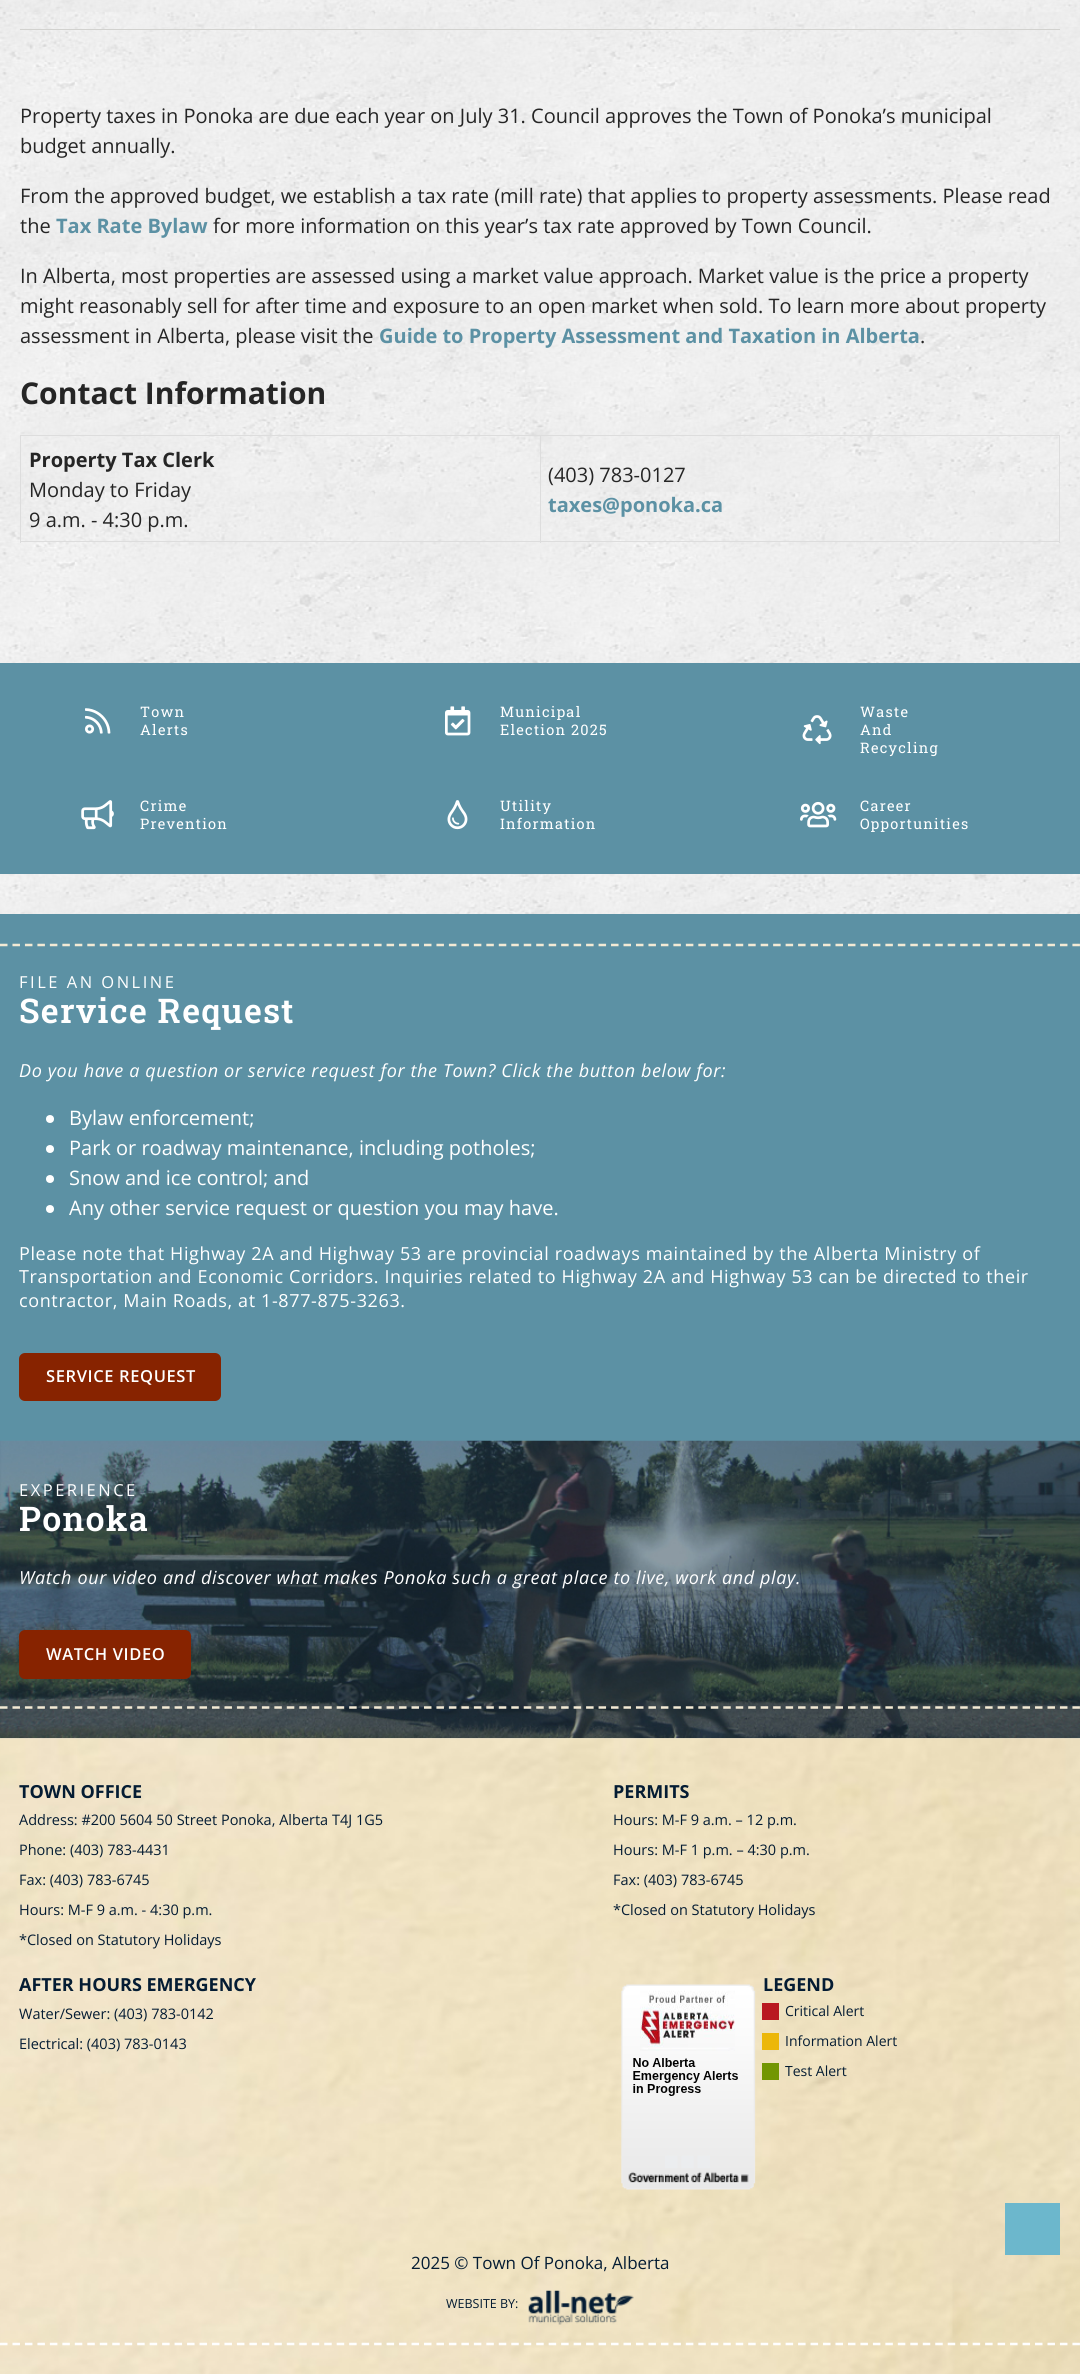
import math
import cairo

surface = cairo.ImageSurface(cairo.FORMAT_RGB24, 1080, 2374)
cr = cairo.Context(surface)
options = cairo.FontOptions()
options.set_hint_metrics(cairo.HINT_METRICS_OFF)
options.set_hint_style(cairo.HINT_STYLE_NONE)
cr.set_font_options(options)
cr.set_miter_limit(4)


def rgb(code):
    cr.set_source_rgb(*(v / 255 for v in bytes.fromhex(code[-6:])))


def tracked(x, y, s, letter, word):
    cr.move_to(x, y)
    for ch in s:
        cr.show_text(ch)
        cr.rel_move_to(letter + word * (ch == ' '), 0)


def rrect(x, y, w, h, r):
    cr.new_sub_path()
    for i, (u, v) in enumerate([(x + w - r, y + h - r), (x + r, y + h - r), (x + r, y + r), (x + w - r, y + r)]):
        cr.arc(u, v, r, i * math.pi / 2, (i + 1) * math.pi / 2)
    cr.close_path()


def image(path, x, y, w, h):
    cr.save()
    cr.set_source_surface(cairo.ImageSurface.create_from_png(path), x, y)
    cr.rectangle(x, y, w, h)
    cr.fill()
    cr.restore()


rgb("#ffffff")
cr.paint()
image("img/1.png", 0, 0, 1080, 1739)
for x, y, w, h, color in [
    (20, 29, 1040, 1, "#d2d2cf"),
    (540, 435, 520, 1, "#dddddd"),
    (1059, 435, 1, 108, "#dddddd"),
    (540, 541, 520, 1, "#dddddd"),
    (540, 435, 1, 108, "#dddddd"),
    (20, 435, 521, 1, "#dddddd"),
    (20, 541, 521, 1, "#dddddd"),
    (20, 435, 1, 108, "#dddddd"),
    (0, 663, 1080, 211, "#5c91a4"),
]:
    rgb(color)
    cr.rectangle(x, y, w, h)
    cr.fill()
image("img/2.png", 85, 708, 26, 26)
image("img/3.png", 445, 706, 26, 30)
image("img/4.png", 802, 715, 30, 30)
image("img/5.png", 81, 800, 33, 30)
image("img/6.png", 447, 800, 21, 30)
image("img/7.png", 800, 801, 37, 27)
cr.rectangle(0, 914, 1080, 527)
cr.fill()
cr.new_path()
cr.move_to(0, 945)
cr.line_to(1080, 945)
rgb("#f3ead5")
cr.set_line_width(2.5)
cr.set_dash([7.5, 4.97])
cr.stroke()
rgb("#ffffff")
cr.arc(50, 1119, 4, 0, 2 * math.pi)
cr.fill()
cr.arc(50, 1149, 4, 0, 2 * math.pi)
cr.fill()
cr.arc(50, 1179, 4, 0, 2 * math.pi)
cr.fill()
cr.arc(50, 1209, 4, 0, 2 * math.pi)
cr.fill()
rgb("#872300")
rrect(19, 1353, 202, 48, 6)
cr.fill()
image("img/8.png", 0, 1440, 1080, 299)
rrect(19, 1630, 172, 49, 6)
cr.fill()
cr.new_path()
cr.move_to(0, 1707.5)
cr.line_to(1080, 1707.5)
rgb("#f3ead5")
cr.stroke()
image("img/9.png", 0, 1738, 1080, 636)
image("img/10.png", 621, 1984, 135, 206)
for x, y, w, h, color in [
    (762, 2003, 17, 17, "#b91820"),
    (762, 2033, 17, 17, "#ecb709"),
    (762, 2063, 17, 17, "#729602"),
]:
    rgb(color)
    cr.rectangle(x, y, w, h)
    cr.fill()
image("img/11.png", 528, 2290, 106, 35)
cr.new_path()
cr.move_to(0, 2344)
cr.line_to(1080, 2344)
rgb("#ffffff")
cr.stroke()
rgb("#6cb7cc")
cr.rectangle(1005, 2203, 55, 52)
cr.fill()
cr.select_font_face("Open Sans")
cr.set_font_size(20)
rgb("#252525")
for x, y, s in [
    (20, 123, "Property taxes in Ponoka are due each year on July 31. Council approves the Town of Ponoka’s municipal"),
    (20, 153, "budget annually."),
    (20, 203, "From the approved budget, we establish a tax rate (mill rate) that applies to property assessments. Please read"),
    (20, 233, "the"),
]:
    cr.move_to(x, y)
    cr.show_text(s)
cr.select_font_face("Open Sans", cairo.FONT_SLANT_NORMAL, cairo.FONT_WEIGHT_BOLD)
rgb("#5c91a4")
cr.move_to(56, 233)
cr.show_text("Tax Rate Bylaw")
cr.select_font_face("Open Sans")
rgb("#252525")
for x, y, s in [
    (213, 233, "for more information on this year’s tax rate approved by Town Council."),
    (20, 283, "In Alberta, most properties are assessed using a market value approach. Market value is the price a property"),
    (20, 313, "might reasonably sell for after time and exposure to an open market when sold. To learn more about property"),
    (20, 343, "assessment in Alberta, please visit the"),
]:
    cr.move_to(x, y)
    cr.show_text(s)
cr.select_font_face("Open Sans", cairo.FONT_SLANT_NORMAL, cairo.FONT_WEIGHT_BOLD)
rgb("#5c91a4")
cr.move_to(379, 343)
cr.show_text("Guide to Property Assessment and Taxation in Alberta")
cr.select_font_face("Open Sans")
rgb("#252525")
cr.move_to(920, 343)
cr.show_text(".")
cr.select_font_face("Open Sans", cairo.FONT_SLANT_NORMAL, cairo.FONT_WEIGHT_BOLD)
cr.set_font_size(30)
cr.move_to(20, 404)
cr.show_text("Contact Information")
cr.set_font_size(20)
cr.move_to(29, 467)
cr.show_text("Property Tax Clerk")
cr.select_font_face("Open Sans")
for x, y, s in [
    (29, 497, "Monday to Friday"),
    (29, 527, "9 a.m. - 4:30 p.m."),
    (548, 482, "(403) 783-0127"),
]:
    cr.move_to(x, y)
    cr.show_text(s)
cr.select_font_face("Open Sans", cairo.FONT_SLANT_NORMAL, cairo.FONT_WEIGHT_BOLD)
rgb("#5c91a4")
cr.move_to(548, 512)
cr.show_text("taxes@ponoka.ca")
cr.select_font_face("Roboto Slab")
cr.set_font_size(14.5)
rgb("#ffffff")
for x, y, s in [
    (140, 717, "Town"),
    (140, 735, "Alerts"),
    (500, 717, "Municipal"),
    (500, 735, "Election 2025"),
    (860, 717, "Waste"),
    (860, 735, "And"),
    (860, 753, "Recycling"),
    (140, 811, "Crime"),
    (140, 829, "Prevention"),
    (500, 811, "Utility"),
    (500, 829, "Information"),
    (860, 811, "Career"),
    (860, 829, "Opportunities"),
]:
    tracked(x, y, s, 1.25, 0)
cr.select_font_face("Open Sans")
cr.set_font_size(16.5)
tracked(19, 988, "FILE AN ONLINE", 2.5, 0)
cr.select_font_face("Roboto Slab SemiBold")
cr.set_font_size(34)
tracked(19, 1023, "Service Request", 1.25, 0)
cr.select_font_face("Open Sans", cairo.FONT_SLANT_ITALIC)
cr.set_font_size(18)
tracked(19, 1077, "Do you have a question or service request for the Town? Click the button below for:", 0.62, 0)
cr.select_font_face("Open Sans")
cr.set_font_size(20)
for x, y, s in [
    (69, 1125, "Bylaw enforcement;"),
    (69, 1155, "Park or roadway maintenance, including potholes;"),
    (69, 1185, "Snow and ice control; and"),
    (69, 1215, "Any other service request or question you may have."),
]:
    cr.move_to(x, y)
    cr.show_text(s)
cr.set_font_size(18)
for x, y, s in [
    (19, 1260, "Please note that Highway 2A and Highway 53 are provincial roadways maintained by the Alberta Ministry of"),
    (19, 1283, "Transportation and Economic Corridors. Inquiries related to Highway 2A and Highway 53 can be directed to their"),
    (19, 1307, "contractor, Main Roads, at 1-877-875-3263."),
]:
    tracked(x, y, s, 0.62, 0)
cr.select_font_face("Open Sans SemiBold")
cr.set_font_size(16.5)
tracked(46, 1382, "SERVICE REQUEST", 0.62, 0)
cr.select_font_face("Open Sans")
tracked(19, 1496, "EXPERIENCE", 2.5, 0)
cr.select_font_face("Roboto Slab SemiBold")
cr.set_font_size(34)
tracked(19, 1531, "Ponoka", 1.25, 0)
cr.select_font_face("Open Sans", cairo.FONT_SLANT_ITALIC)
cr.set_font_size(18)
tracked(19, 1584, "Watch our video and discover what makes Ponoka such a great place to live, work and play.", 0.62, 0)
cr.select_font_face("Open Sans SemiBold")
cr.set_font_size(16.5)
tracked(46, 1660, "WATCH VIDEO", 0.62, 0)
cr.select_font_face("Open Sans", cairo.FONT_SLANT_NORMAL, cairo.FONT_WEIGHT_BOLD)
cr.set_font_size(18)
rgb("#041c33")
cr.move_to(19, 1798)
cr.show_text("TOWN OFFICE")
cr.select_font_face("Open Sans")
cr.set_font_size(14.5)
for x, y, s in [
    (19, 1825, "Address: #200 5604 50 Street Ponoka, Alberta T4J 1G5"),
    (19, 1855, "Phone: (403) 783-4431"),
    (19, 1885, "Fax: (403) 783-6745"),
    (19, 1915, "Hours: M-F 9 a.m. - 4:30 p.m."),
    (19, 1945, "*Closed on Statutory Holidays"),
]:
    cr.move_to(x, y)
    cr.show_text(s)
cr.select_font_face("Open Sans", cairo.FONT_SLANT_NORMAL, cairo.FONT_WEIGHT_BOLD)
cr.set_font_size(18)
cr.move_to(613, 1798)
cr.show_text("PERMITS")
cr.select_font_face("Open Sans")
cr.set_font_size(14.5)
for x, y, s in [
    (613, 1825, "Hours: M-F 9 a.m. – 12 p.m."),
    (613, 1855, "Hours: M-F 1 p.m. – 4:30 p.m."),
    (613, 1885, "Fax: (403) 783-6745"),
    (613, 1915, "*Closed on Statutory Holidays"),
]:
    cr.move_to(x, y)
    cr.show_text(s)
cr.select_font_face("Open Sans", cairo.FONT_SLANT_NORMAL, cairo.FONT_WEIGHT_BOLD)
cr.set_font_size(18)
cr.move_to(19, 1991)
cr.show_text("AFTER HOURS EMERGENCY")
cr.select_font_face("Open Sans")
cr.set_font_size(14.5)
cr.move_to(19, 2019)
cr.show_text("Water/Sewer: (403) 783-0142")
cr.move_to(19, 2049)
cr.show_text("Electrical: (403) 783-0143")
cr.select_font_face("Open Sans", cairo.FONT_SLANT_NORMAL, cairo.FONT_WEIGHT_BOLD)
cr.set_font_size(18)
cr.move_to(763, 1991)
cr.show_text("LEGEND")
cr.select_font_face("Open Sans")
cr.set_font_size(14)
for x, y, s in [
    (785, 2016, "Critical Alert"),
    (785, 2046, "Information Alert"),
    (785, 2076, "Test Alert"),
]:
    cr.move_to(x, y)
    cr.show_text(s)
cr.set_font_size(17)
cr.move_to(411, 2269)
cr.show_text("2025 © Town Of Ponoka, Alberta")
cr.set_font_size(12.5)
cr.move_to(446, 2308)
cr.show_text("WEBSITE BY:")
surface.write_to_png("page.png")
